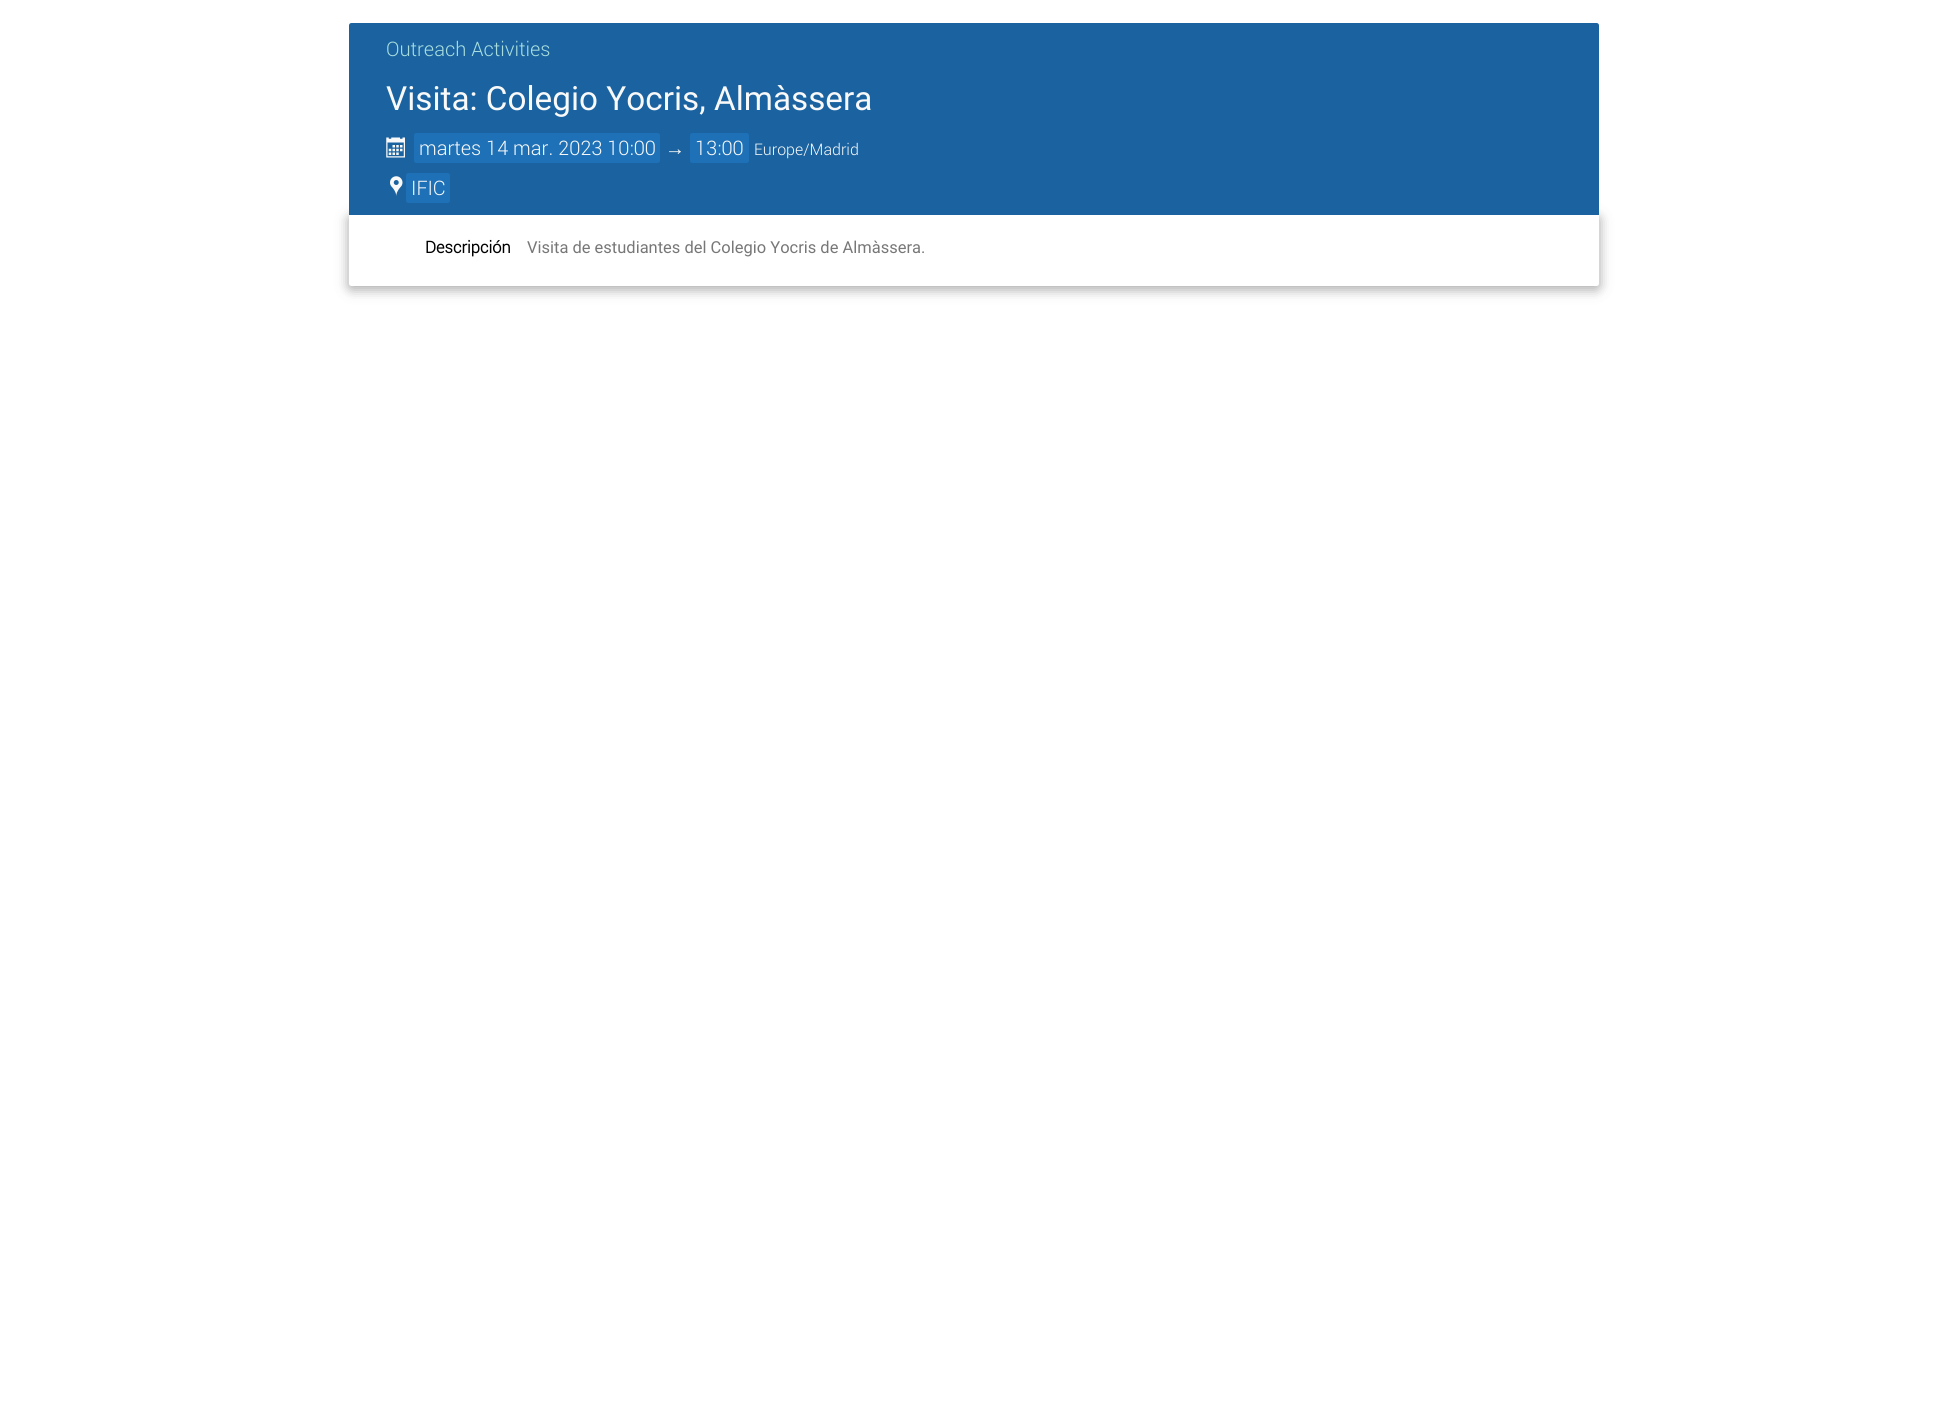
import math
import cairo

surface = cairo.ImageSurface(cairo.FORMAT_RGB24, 1946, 1416)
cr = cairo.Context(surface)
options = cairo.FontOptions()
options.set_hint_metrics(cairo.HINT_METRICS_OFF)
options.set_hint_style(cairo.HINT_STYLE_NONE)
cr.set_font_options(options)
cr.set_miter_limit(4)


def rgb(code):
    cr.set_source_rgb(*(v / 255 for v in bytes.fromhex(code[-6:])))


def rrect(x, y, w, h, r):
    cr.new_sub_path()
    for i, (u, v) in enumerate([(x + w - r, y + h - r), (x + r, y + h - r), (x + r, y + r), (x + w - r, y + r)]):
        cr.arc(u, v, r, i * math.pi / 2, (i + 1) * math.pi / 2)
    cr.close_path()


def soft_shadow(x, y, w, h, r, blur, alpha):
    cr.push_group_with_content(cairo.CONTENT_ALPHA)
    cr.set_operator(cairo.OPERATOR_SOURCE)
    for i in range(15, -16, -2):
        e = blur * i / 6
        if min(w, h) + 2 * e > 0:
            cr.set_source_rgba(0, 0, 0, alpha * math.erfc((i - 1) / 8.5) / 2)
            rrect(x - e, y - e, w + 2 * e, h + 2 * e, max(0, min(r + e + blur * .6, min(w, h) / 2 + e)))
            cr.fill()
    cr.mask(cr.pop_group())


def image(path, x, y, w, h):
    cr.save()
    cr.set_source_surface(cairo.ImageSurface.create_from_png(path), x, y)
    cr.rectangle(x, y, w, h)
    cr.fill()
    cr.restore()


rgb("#ffffff")
cr.paint()
rgb("#323232")
soft_shadow(348, 216, 1252, 74, 4, 6, 0.4)
rgb("#1a63a0")
cr.new_path()
cr.move_to(351.5, 23)
cr.line_to(1596.5, 23)
cr.curve_to(1598, 23, 1599, 24, 1599, 25.5)
cr.line_to(1599, 215)
cr.line_to(349, 215)
cr.line_to(349, 25.5)
cr.curve_to(349, 24, 350, 23, 351.5, 23)
cr.close_path()
cr.fill()
image("img/1.png", 386, 137, 19, 21)
rgb("#1e71b6")
rrect(414, 133, 246, 30, 2.5)
cr.fill()
rrect(690, 133, 59, 30, 2.5)
cr.fill()
image("img/2.png", 390, 176, 13, 20)
rrect(406, 173, 44, 30, 2.5)
cr.fill()
rgb("#ffffff")
cr.new_path()
cr.move_to(349, 215)
cr.line_to(1599, 215)
cr.line_to(1599, 283.5)
cr.curve_to(1599, 285, 1598, 286, 1596.5, 286)
cr.line_to(351.5, 286)
cr.curve_to(350, 286, 349, 285, 349, 283.5)
cr.close_path()
cr.fill()
cr.select_font_face("Roboto Light")
cr.set_font_size(20)
rgb("#a8dede")
cr.move_to(386, 56)
cr.show_text("Outreach Activities")
cr.select_font_face("Roboto")
cr.set_font_size(33.3)
rgb("#f9f9f9")
cr.move_to(386, 110)
cr.show_text("Visita: Colegio Yocris, Almàssera")
cr.select_font_face("Roboto Light")
cr.set_font_size(20)
cr.move_to(419, 155)
cr.show_text("martes 14 mar. 2023 10:00")
cr.select_font_face("Liberation Sans")
cr.move_to(665, 155)
cr.show_text("→")
cr.select_font_face("Roboto Light")
cr.move_to(695, 155)
cr.show_text("13:00")
cr.set_font_size(16)
cr.move_to(754, 155)
cr.show_text("Europe/Madrid")
cr.set_font_size(20)
cr.move_to(411, 195)
cr.show_text("IFIC")
cr.select_font_face("Roboto", cairo.FONT_SLANT_NORMAL, cairo.FONT_WEIGHT_BOLD)
cr.set_font_size(16.5)
rgb("#000000")
cr.move_to(425, 253)
cr.show_text("Descripción")
cr.select_font_face("Roboto")
rgb("#777777")
cr.move_to(527, 253)
cr.show_text("Visita de estudiantes del Colegio Yocris de Almàssera.")
surface.write_to_png("page.png")
